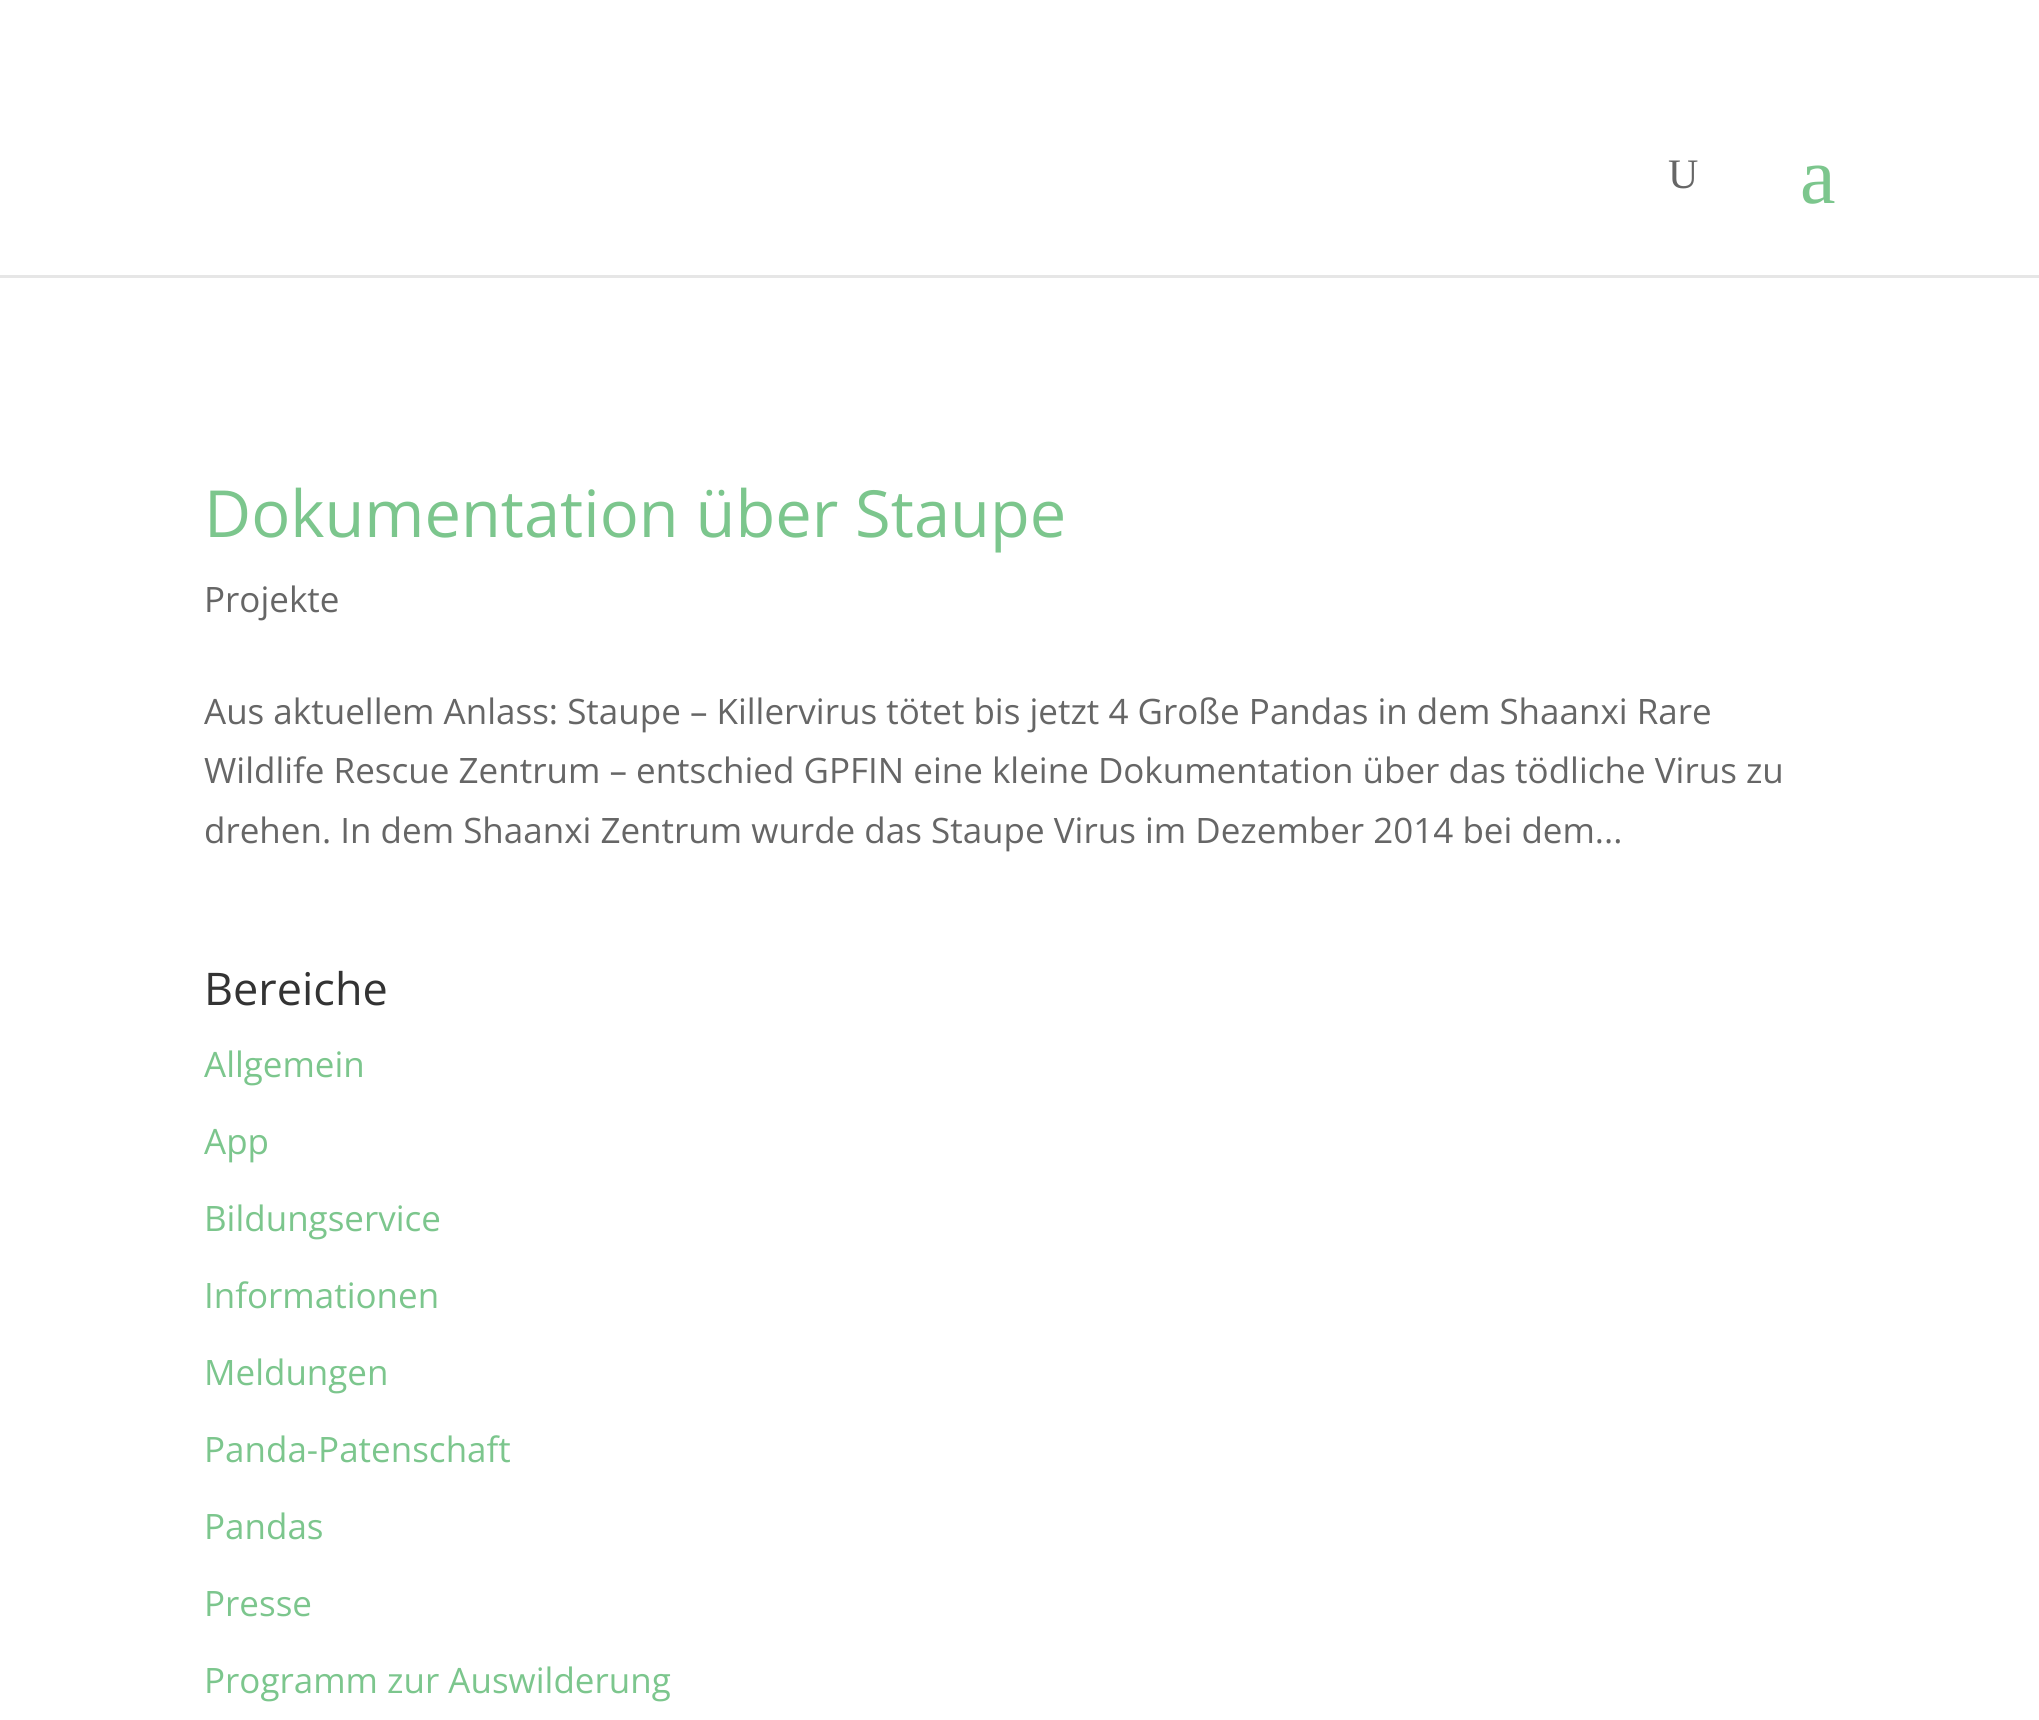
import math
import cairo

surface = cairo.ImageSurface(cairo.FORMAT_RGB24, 2039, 1720)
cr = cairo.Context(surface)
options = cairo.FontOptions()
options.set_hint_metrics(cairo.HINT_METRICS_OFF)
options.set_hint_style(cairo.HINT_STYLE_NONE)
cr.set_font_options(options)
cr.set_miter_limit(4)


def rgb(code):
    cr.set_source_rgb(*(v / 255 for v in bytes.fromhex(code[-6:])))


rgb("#ffffff")
cr.paint()
rgb("#e6e6e6")
cr.rectangle(0, 275, 2039, 3)
cr.fill()
cr.select_font_face("Liberation Serif")
cr.set_font_size(42)
rgb("#666666")
cr.move_to(1668, 188)
cr.show_text("U")
cr.set_font_size(80)
rgb("#7cc68d")
cr.move_to(1800, 203)
cr.show_text("a")
cr.select_font_face("Open Sans")
cr.set_font_size(65)
cr.move_to(204, 537)
cr.show_text("Dokumentation über Staupe")
cr.set_font_size(35)
rgb("#666666")
for x, y, s in [
    (204, 612, "Projekte"),
    (204, 724, "Aus aktuellem Anlass: Staupe – Killervirus tötet bis jetzt 4 Große Pandas in dem Shaanxi Rare"),
    (204, 783, "Wildlife Rescue Zentrum – entschied GPFIN eine kleine Dokumentation über das tödliche Virus zu"),
    (204, 843, "drehen. In dem Shaanxi Zentrum wurde das Staupe Virus im Dezember 2014 bei dem..."),
]:
    cr.move_to(x, y)
    cr.show_text(s)
cr.set_font_size(45)
rgb("#333333")
cr.move_to(204, 1005)
cr.show_text("Bereiche")
cr.set_font_size(35)
rgb("#7cc68d")
for x, y, s in [
    (204, 1077, "Allgemein"),
    (204, 1154, "App"),
    (204, 1231, "Bildungservice"),
    (204, 1308, "Informationen"),
    (204, 1385, "Meldungen"),
    (204, 1462, "Panda-Patenschaft"),
    (204, 1539, "Pandas"),
    (204, 1616, "Presse"),
    (204, 1693, "Programm zur Auswilderung"),
]:
    cr.move_to(x, y)
    cr.show_text(s)
surface.write_to_png("page.png")
